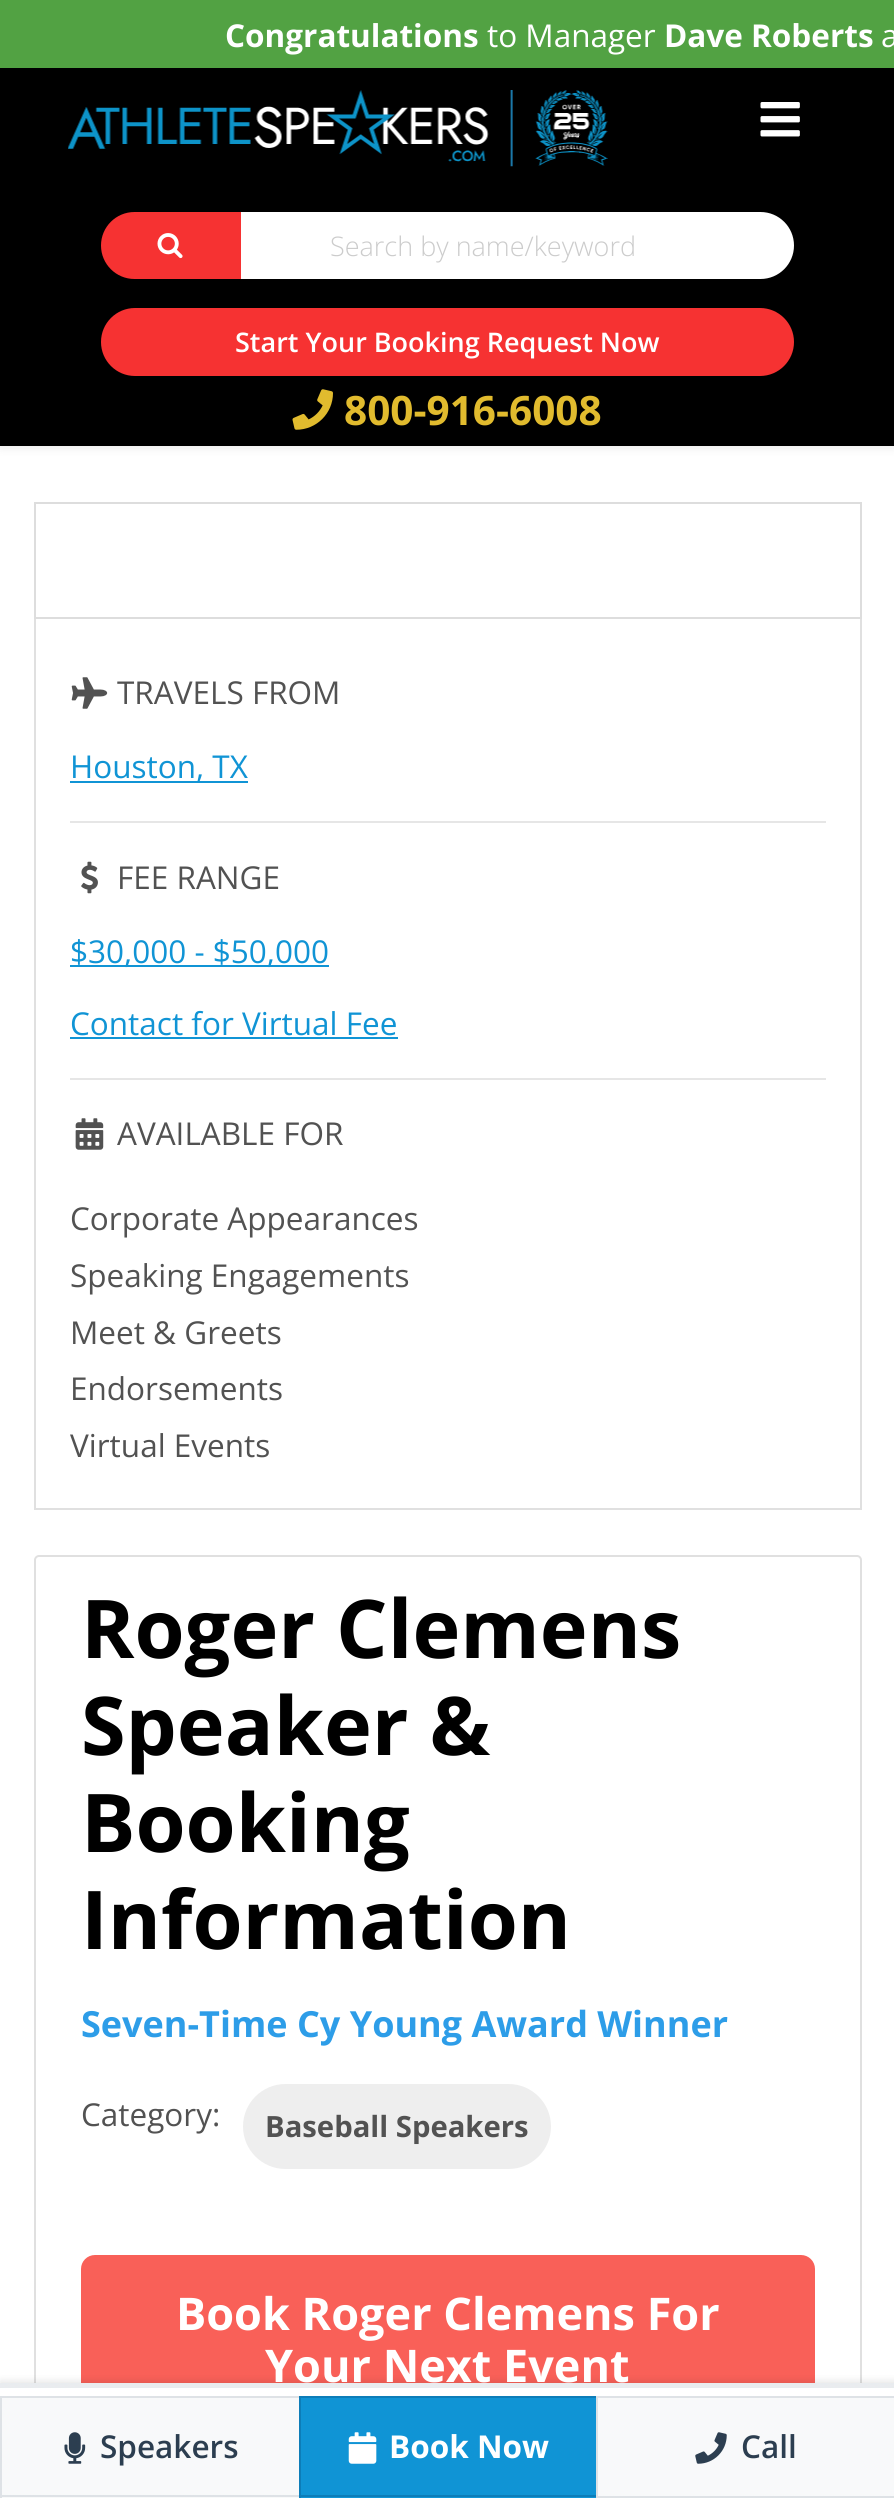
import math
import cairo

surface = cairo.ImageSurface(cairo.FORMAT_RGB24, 894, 2505)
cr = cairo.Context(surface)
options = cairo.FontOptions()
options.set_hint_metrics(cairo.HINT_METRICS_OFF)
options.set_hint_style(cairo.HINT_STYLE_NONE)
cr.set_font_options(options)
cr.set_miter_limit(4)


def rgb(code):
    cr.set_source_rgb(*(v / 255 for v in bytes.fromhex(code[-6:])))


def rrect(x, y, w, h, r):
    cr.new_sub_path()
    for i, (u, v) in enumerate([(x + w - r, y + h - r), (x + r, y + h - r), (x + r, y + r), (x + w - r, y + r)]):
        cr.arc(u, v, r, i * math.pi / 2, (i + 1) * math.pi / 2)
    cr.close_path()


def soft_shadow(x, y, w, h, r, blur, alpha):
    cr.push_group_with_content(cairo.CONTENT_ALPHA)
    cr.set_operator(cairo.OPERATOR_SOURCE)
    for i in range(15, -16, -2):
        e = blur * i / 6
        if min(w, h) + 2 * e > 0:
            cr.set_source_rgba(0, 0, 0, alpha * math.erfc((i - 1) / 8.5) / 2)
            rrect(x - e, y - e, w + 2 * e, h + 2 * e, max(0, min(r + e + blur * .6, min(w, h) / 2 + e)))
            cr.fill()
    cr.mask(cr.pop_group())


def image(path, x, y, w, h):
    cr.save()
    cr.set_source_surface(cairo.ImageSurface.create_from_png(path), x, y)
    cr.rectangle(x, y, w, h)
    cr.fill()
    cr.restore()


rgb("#ffffff")
cr.paint()
rgb("#000000")
soft_shadow(0, 0, 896, 446, 0, 5.5, 0.1)
rgb("#000000")
cr.rectangle(0, 68, 894, 378)
cr.fill()
rgb("#52a243")
cr.rectangle(0, 0, 894, 68)
cr.fill()
image("img/1.png", 68, 90, 540, 77)
image("img/2.png", 760, 102, 40, 35)
rgb("#f63232")
cr.new_path()
cr.move_to(134.5, 212)
cr.line_to(241, 212)
cr.line_to(241, 279)
cr.line_to(134.5, 279)
cr.curve_to(116, 279, 101, 264, 101, 245.5)
cr.curve_to(101, 227, 116, 212, 134.5, 212)
cr.close_path()
cr.fill()
image("img/3.png", 157, 233, 26, 26)
rgb("#ffffff")
cr.new_path()
cr.move_to(241, 212)
cr.line_to(760.5, 212)
cr.curve_to(779, 212, 794, 227, 794, 245.5)
cr.curve_to(794, 264, 779, 279, 760.5, 279)
cr.line_to(241, 279)
cr.close_path()
cr.fill()
rgb("#f63232")
rrect(101, 308, 693, 68, 34)
cr.fill()
image("img/4.png", 292, 389, 41, 41)
cr.rectangle(35, 503, 826, 1006)
rgb("#e0e0e0")
cr.stroke()
cr.rectangle(35, 503, 826, 115)
rgb("#dddddd")
cr.stroke()
image("img/5.png", 71, 677, 37, 32)
rgb("#1094d5")
cr.rectangle(70, 781, 178, 2)
cr.fill()
rgb("#e6e6e6")
cr.rectangle(70, 821, 756, 2)
cr.fill()
image("img/6.png", 81, 861, 17, 33)
for x, y, w, h, color in [
    (70, 965, 259, 2, "#1094d5"),
    (70, 1037, 328, 2, "#1094d5"),
    (70, 1078, 756, 2, "#e6e6e6"),
]:
    rgb(color)
    cr.rectangle(x, y, w, h)
    cr.fill()
image("img/7.png", 75, 1118, 29, 32)
rrect(35, 1556, 826, 938, 4)
rgb("#e0e0e0")
cr.stroke()
rgb("#eeeeee")
rrect(243, 2084, 308, 85, 42.5)
cr.fill()
rgb("#f96058")
rrect(81, 2255, 734, 171, 14)
cr.fill()
rgb("#000000")
soft_shadow(0, 2381, 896, 123, 0, 3.5, 0.1)
for x, y, w, h, color in [
    (0, 2388, 894, 117, "#ffffff"),
    (0, 2383, 894, 5, "#e9ecef"),
    (2, 2398, 297, 100, "#f8f9fa"),
    (0, 2396, 299, 2, "#dee2e6"),
    (0, 2495, 299, 2, "#dee2e6"),
    (0, 2396, 2, 102, "#dee2e6"),
]:
    rgb(color)
    cr.rectangle(x, y, w, h)
    cr.fill()
image("img/8.png", 64, 2432, 22, 32)
for x, y, w, h, color in [
    (301, 2398, 295, 100, "#1094d5"),
    (299, 2396, 297, 2, "#0d7db8"),
    (299, 2495, 297, 2, "#0d7db8"),
    (299, 2396, 2, 102, "#0d7db8"),
]:
    rgb(color)
    cr.rectangle(x, y, w, h)
    cr.fill()
image("img/9.png", 348, 2432, 29, 32)
rgb("#f8f9fa")
cr.rectangle(597, 2397, 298, 100)
cr.fill_preserve()
rgb("#dee2e6")
cr.stroke()
image("img/10.png", 695, 2432, 32, 32)
cr.select_font_face("Open Sans", cairo.FONT_SLANT_NORMAL, cairo.FONT_WEIGHT_BOLD)
cr.set_font_size(31.5)
rgb("#ffffff")
cr.move_to(225, 47)
cr.show_text("Congratulations")
cr.select_font_face("Open Sans")
cr.move_to(487, 47)
cr.show_text("to Manager")
cr.select_font_face("Open Sans", cairo.FONT_SLANT_NORMAL, cairo.FONT_WEIGHT_BOLD)
cr.move_to(664, 47)
cr.show_text("Dave Roberts")
cr.select_font_face("Open Sans")
cr.move_to(881, 47)
cr.show_text("a")
cr.select_font_face("Open Sans Light")
cr.set_font_size(27)
rgb("#cccccc")
cr.move_to(330, 256)
cr.show_text("Search by name/keyword")
cr.select_font_face("Open Sans SemiBold")
rgb("#ffffff")
cr.move_to(235, 352)
cr.show_text("Start Your Booking Request Now")
cr.select_font_face("Open Sans", cairo.FONT_SLANT_NORMAL, cairo.FONT_WEIGHT_BOLD)
cr.set_font_size(40.5)
rgb("#e1bb2e")
cr.move_to(344, 425)
cr.show_text("800-916-6008")
cr.select_font_face("Open Sans")
cr.set_font_size(31.5)
rgb("#525252")
cr.move_to(117, 704)
cr.show_text("TRAVELS FROM")
rgb("#1094d5")
cr.move_to(70, 778)
cr.show_text("Houston, TX")
rgb("#525252")
cr.move_to(117, 889)
cr.show_text("FEE RANGE")
rgb("#1094d5")
cr.move_to(70, 963)
cr.show_text("$30,000 - $50,000")
cr.move_to(70, 1035)
cr.show_text("Contact for Virtual Fee")
rgb("#525252")
for x, y, s in [
    (117, 1145, "AVAILABLE FOR"),
    (70, 1230, "Corporate Appearances"),
    (70, 1287, "Speaking Engagements"),
    (70, 1344, "Meet & Greets"),
    (70, 1400, "Endorsements"),
    (70, 1457, "Virtual Events"),
]:
    cr.move_to(x, y)
    cr.show_text(s)
cr.select_font_face("Open Sans", cairo.FONT_SLANT_NORMAL, cairo.FONT_WEIGHT_BOLD)
cr.set_font_size(81)
rgb("#000000")
for x, y, s in [
    (81, 1658, "Roger Clemens"),
    (81, 1755, "Speaker &"),
    (81, 1852, "Booking"),
    (81, 1949, "Information"),
]:
    cr.move_to(x, y)
    cr.show_text(s)
cr.set_font_size(36)
rgb("#2d9de8")
cr.move_to(81, 2037)
cr.show_text("Seven-Time Cy Young Award Winner")
cr.select_font_face("Open Sans")
cr.set_font_size(31.5)
rgb("#525252")
cr.move_to(81, 2126)
cr.show_text("Category:")
cr.select_font_face("Open Sans", cairo.FONT_SLANT_NORMAL, cairo.FONT_WEIGHT_BOLD)
cr.set_font_size(29.25)
cr.move_to(265, 2137)
cr.show_text("Baseball Speakers")
cr.set_font_size(45)
rgb("#ffffff")
cr.move_to(176, 2330)
cr.show_text("Book Roger Clemens For")
cr.move_to(265, 2382)
cr.show_text("Your Next Event")
cr.select_font_face("Open Sans SemiBold")
cr.set_font_size(31.5)
rgb("#2c3e50")
cr.move_to(100, 2458)
cr.show_text("Speakers")
cr.select_font_face("Open Sans", cairo.FONT_SLANT_NORMAL, cairo.FONT_WEIGHT_BOLD)
rgb("#ffffff")
cr.move_to(389, 2458)
cr.show_text("Book Now")
cr.select_font_face("Open Sans SemiBold")
rgb("#2c3e50")
cr.move_to(741, 2458)
cr.show_text("Call")
surface.write_to_png("page.png")
